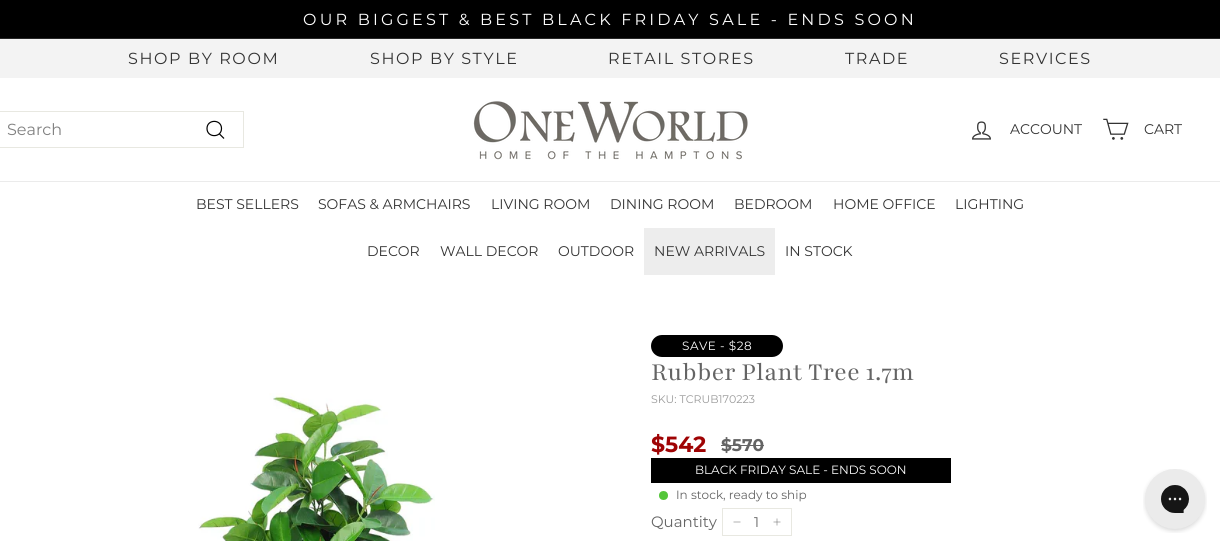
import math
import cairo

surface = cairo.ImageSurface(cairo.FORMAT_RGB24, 1220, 541)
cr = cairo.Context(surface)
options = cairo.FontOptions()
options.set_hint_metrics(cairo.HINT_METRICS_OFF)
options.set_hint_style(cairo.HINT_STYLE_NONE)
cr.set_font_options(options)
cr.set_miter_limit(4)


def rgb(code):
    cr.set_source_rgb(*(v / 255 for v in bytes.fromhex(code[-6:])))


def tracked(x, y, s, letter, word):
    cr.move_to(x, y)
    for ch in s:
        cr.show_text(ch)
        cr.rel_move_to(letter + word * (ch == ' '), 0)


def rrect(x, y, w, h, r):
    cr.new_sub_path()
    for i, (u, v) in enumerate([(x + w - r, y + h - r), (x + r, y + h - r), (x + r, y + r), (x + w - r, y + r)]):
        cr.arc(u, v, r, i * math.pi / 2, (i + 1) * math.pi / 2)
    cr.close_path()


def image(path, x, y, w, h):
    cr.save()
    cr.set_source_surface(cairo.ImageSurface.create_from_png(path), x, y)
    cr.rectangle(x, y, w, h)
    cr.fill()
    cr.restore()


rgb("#ffffff")
cr.paint()
for x, y, w, h, color in [
    (0, 0, 1220, 38, "#000000"),
    (0, 38, 1220, 1, "#262626"),
    (0, 39, 1220, 39, "#f3f3f3"),
]:
    rgb(color)
    cr.rectangle(x, y, w, h)
    cr.fill()
cr.rectangle(-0.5, 111.5, 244, 36)
rgb("#e8e8e1")
cr.set_line_width(1)
cr.stroke()
cr.new_path()
cr.move_to(221.5, 128.5)
cr.curve_to(221.5, 138, 207, 138, 207, 128.5)
cr.curve_to(207, 119, 221.5, 119, 221.5, 128.5)
cr.move_to(224, 138.5)
cr.line_to(219.5, 134)
rgb("#000000")
cr.set_line_width(1.2)
cr.stroke()
image("img/1.png", 473, 101, 275, 59)
image("img/2.png", 972, 121, 19, 19)
image("img/3.png", 1103, 118, 26, 22)
rgb("#ebebeb")
cr.rectangle(0, 181, 1220, 1)
cr.fill()
rgb("#ededed")
cr.rectangle(644, 228, 131, 47)
cr.fill()
image("img/4.png", 198, 393, 237, 148)
rgb("#000000")
rrect(651, 335, 132, 22, 11)
cr.fill()
rgb("#646464")
cr.rectangle(721, 445, 43, 1)
cr.fill()
rgb("#000000")
cr.rectangle(651, 458, 300, 25)
cr.fill()
rgb("#54c63a")
cr.arc(663.5, 495.5, 4.5, 0, 2 * math.pi)
cr.fill()
cr.rectangle(722.5, 508.5, 69, 27)
rgb("#e8e8e1")
cr.set_line_width(1)
cr.stroke()
cr.new_path()
cr.move_to(740.5, 522)
cr.line_to(733.5, 522)
cr.move_to(777, 518.5)
cr.line_to(777, 525.5)
cr.move_to(780.5, 522)
cr.line_to(773.5, 522)
rgb("#646464")
cr.set_line_width(0.5)
cr.stroke()
image("img/5.png", 1143, 469, 64, 64)
cr.select_font_face("Montserrat")
cr.set_font_size(16)
rgb("#ffffff")
tracked(303, 25, "OUR BIGGEST & BEST BLACK FRIDAY SALE - ENDS SOON", 3.2, 0)
rgb("#333333")
for x, y, s in [
    (128, 64, "SHOP BY ROOM"),
    (370, 64, "SHOP BY STYLE"),
    (608, 64, "RETAIL STORES"),
    (845, 64, "TRADE"),
    (999, 64, "SERVICES"),
]:
    tracked(x, y, s, 1.6, 0)
rgb("#808080")
cr.move_to(7, 135)
cr.show_text("Search")
cr.set_font_size(14)
rgb("#333333")
for x, y, s in [
    (1010, 134, "ACCOUNT"),
    (1144, 134, "CART"),
    (196, 209, "BEST SELLERS"),
    (318, 209, "SOFAS & ARMCHAIRS"),
    (491, 209, "LIVING ROOM"),
    (610, 209, "DINING ROOM"),
    (734, 209, "BEDROOM"),
    (833, 209, "HOME OFFICE"),
    (955, 209, "LIGHTING"),
    (367, 256, "DECOR"),
    (440, 256, "WALL DECOR"),
    (558, 256, "OUTDOOR"),
    (654, 256, "NEW ARRIVALS"),
    (785, 256, "IN STOCK"),
]:
    cr.move_to(x, y)
    cr.show_text(s)
cr.set_font_size(12)
rgb("#ffffff")
tracked(682, 350, "SAVE - $28", 0.5, 0)
cr.select_font_face("Playfair")
cr.set_font_size(27.25)
rgb("#646464")
cr.move_to(651, 380)
cr.show_text("Rubber Plant Tree 1.7m")
cr.select_font_face("Montserrat")
cr.set_font_size(11)
rgb("#9a9a9a")
cr.move_to(651, 403)
cr.show_text("SKU: TCRUB170223")
cr.select_font_face("Montserrat", cairo.FONT_SLANT_NORMAL, cairo.FONT_WEIGHT_BOLD)
cr.set_font_size(22)
rgb("#9f0304")
cr.move_to(651, 452)
cr.show_text("$542")
cr.set_font_size(17)
rgb("#646464")
cr.move_to(721, 451)
cr.show_text("$570")
cr.select_font_face("Montserrat")
cr.set_font_size(12)
rgb("#ffffff")
cr.move_to(695, 474)
cr.show_text("BLACK FRIDAY SALE - ENDS SOON")
rgb("#646464")
cr.move_to(676, 499)
cr.show_text("In stock, ready to ship")
cr.set_font_size(15)
cr.move_to(651, 527)
cr.show_text("Quantity")
cr.set_font_size(14)
cr.move_to(754, 527)
cr.show_text("1")
surface.write_to_png("page.png")
